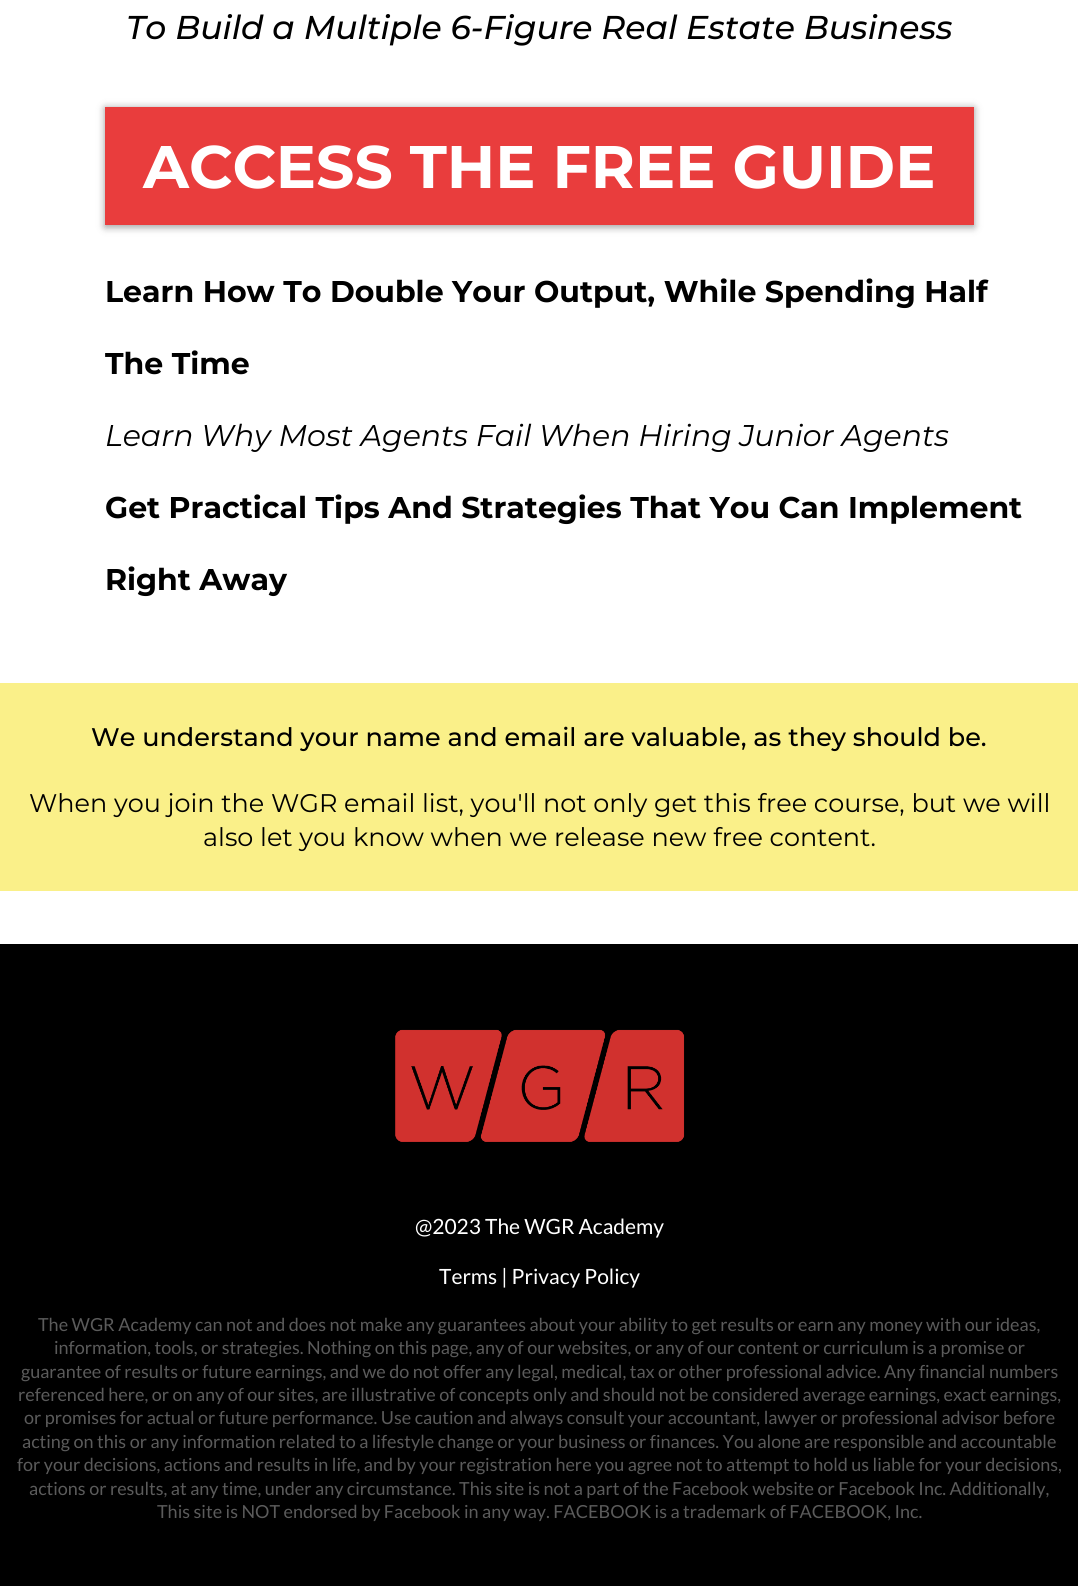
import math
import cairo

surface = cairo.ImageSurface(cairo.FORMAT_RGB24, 1078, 1586)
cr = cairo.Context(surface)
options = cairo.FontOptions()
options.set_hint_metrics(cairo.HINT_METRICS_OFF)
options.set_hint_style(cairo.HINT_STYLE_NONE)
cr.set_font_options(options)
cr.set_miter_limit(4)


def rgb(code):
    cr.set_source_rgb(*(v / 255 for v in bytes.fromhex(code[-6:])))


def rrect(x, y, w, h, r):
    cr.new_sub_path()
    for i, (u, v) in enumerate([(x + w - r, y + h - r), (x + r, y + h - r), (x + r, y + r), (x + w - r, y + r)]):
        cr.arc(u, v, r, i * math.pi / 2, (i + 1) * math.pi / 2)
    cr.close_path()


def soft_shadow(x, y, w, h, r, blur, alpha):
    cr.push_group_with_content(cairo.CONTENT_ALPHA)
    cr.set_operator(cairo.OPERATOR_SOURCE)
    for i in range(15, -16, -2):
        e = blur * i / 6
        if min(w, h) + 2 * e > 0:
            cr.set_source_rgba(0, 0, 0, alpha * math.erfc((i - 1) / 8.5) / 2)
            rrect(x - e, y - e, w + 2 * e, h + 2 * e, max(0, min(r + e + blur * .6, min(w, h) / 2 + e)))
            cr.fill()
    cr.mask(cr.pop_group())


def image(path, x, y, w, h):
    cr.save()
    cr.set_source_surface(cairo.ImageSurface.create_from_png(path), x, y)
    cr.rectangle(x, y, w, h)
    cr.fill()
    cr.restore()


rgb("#ffffff")
cr.paint()
rgb("#000000")
soft_shadow(105, 108, 869, 119, 0, 4, 0.4)
for x, y, w, h, color in [
    (105, 107, 869, 118, "#e93d3d"),
    (0, 683, 1078, 208, "#faf089"),
    (0, 944, 1078, 642, "#000000"),
]:
    rgb(color)
    cr.rectangle(x, y, w, h)
    cr.fill()
image("img/1.png", 395, 1029, 290, 113)
cr.select_font_face("Montserrat Medium", cairo.FONT_SLANT_ITALIC)
cr.set_font_size(33)
cr.move_to(126, 39)
cr.show_text("To Build a Multiple 6-Figure Real Estate Business")
cr.select_font_face("Montserrat", cairo.FONT_SLANT_NORMAL, cairo.FONT_WEIGHT_BOLD)
cr.set_font_size(60)
rgb("#ffffff")
cr.move_to(143, 188)
cr.show_text("ACCESS THE FREE GUIDE")
cr.set_font_size(30)
rgb("#000000")
cr.move_to(105, 302)
cr.show_text("Learn How To Double Your Output, While Spending Half")
cr.move_to(105, 374)
cr.show_text("The Time")
cr.select_font_face("Montserrat", cairo.FONT_SLANT_ITALIC)
cr.move_to(105, 446)
cr.show_text("Learn Why Most Agents Fail When Hiring Junior Agents")
cr.select_font_face("Montserrat", cairo.FONT_SLANT_NORMAL, cairo.FONT_WEIGHT_BOLD)
cr.move_to(105, 518)
cr.show_text("Get Practical Tips And Strategies That You Can Implement")
cr.move_to(105, 590)
cr.show_text("Right Away")
cr.select_font_face("Montserrat Medium")
cr.set_font_size(25.5)
cr.move_to(91, 746)
cr.show_text("We understand your name and email are valuable, as they should be.")
cr.select_font_face("Montserrat")
cr.move_to(29, 812)
cr.show_text("When you join the WGR email list, you'll not only get this free course, but we will")
cr.move_to(203, 846)
cr.show_text("also let you know when we release new free content.")
cr.select_font_face("Lato")
cr.set_font_size(21)
rgb("#ffffff")
cr.move_to(415, 1234)
cr.show_text("@2023 The WGR Academy")
cr.move_to(439, 1284)
cr.show_text("Terms | Privacy Policy")
cr.set_font_size(18)
rgb("#5b5b5b")
for x, y, s in [
    (38, 1331, "The WGR Academy can not and does not make any guarantees about your ability to get results or earn any money with our ideas,"),
    (54, 1354, "information, tools, or strategies. Nothing on this page, any of our websites, or any of our content or curriculum is a promise or"),
    (21, 1378, "guarantee of results or future earnings, and we do not offer any legal, medical, tax or other professional advice. Any financial numbers"),
    (18, 1401, "referenced here, or on any of our sites, are illustrative of concepts only and should not be considered average earnings, exact earnings,"),
    (24, 1424, "or promises for actual or future performance. Use caution and always consult your accountant, lawyer or professional advisor before"),
    (22, 1448, "acting on this or any information related to a lifestyle change or your business or finances. You alone are responsible and accountable"),
    (17, 1471, "for your decisions, actions and results in life, and by your registration here you agree not to attempt to hold us liable for your decisions,"),
    (29, 1495, "actions or results, at any time, under any circumstance. This site is not a part of the Facebook website or Facebook Inc. Additionally,"),
    (157, 1518, "This site is NOT endorsed by Facebook in any way. FACEBOOK is a trademark of FACEBOOK, Inc."),
]:
    cr.move_to(x, y)
    cr.show_text(s)
surface.write_to_png("page.png")
